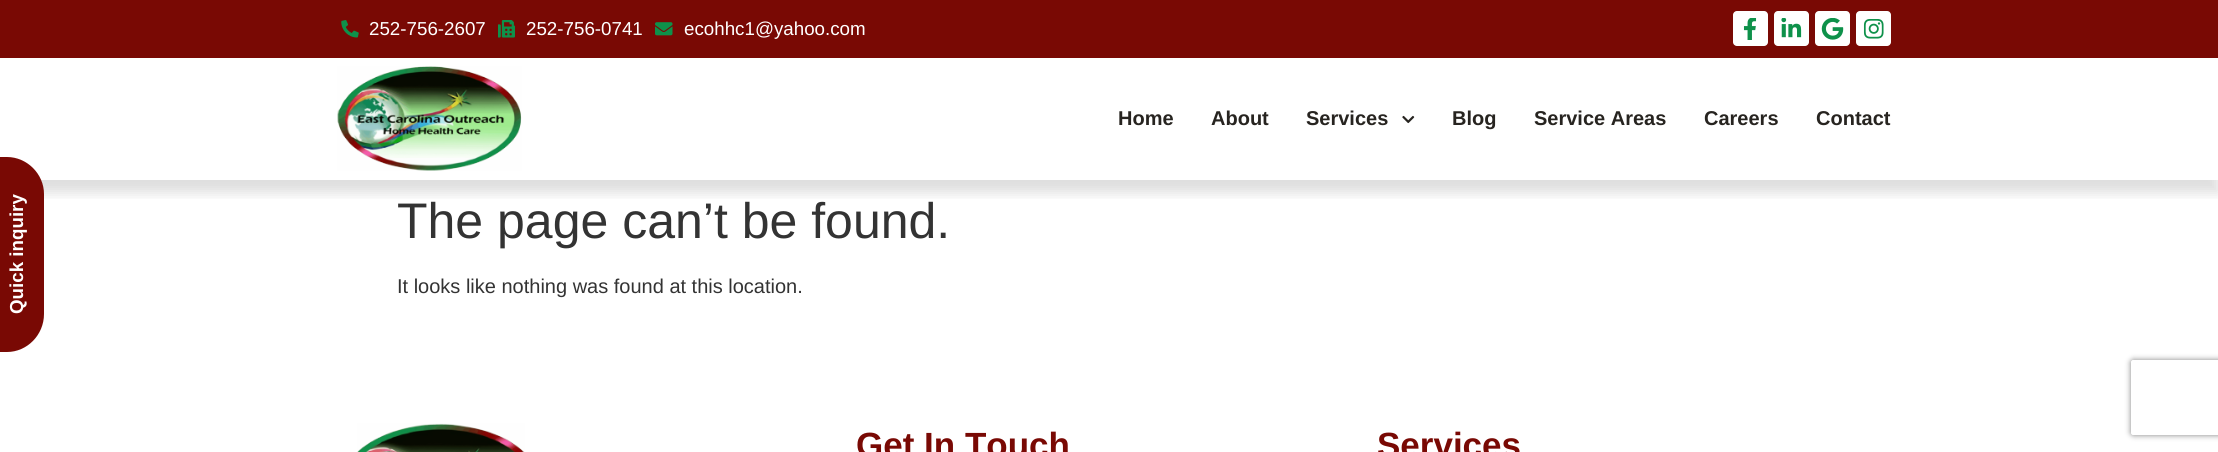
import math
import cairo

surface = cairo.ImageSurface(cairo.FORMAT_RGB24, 2218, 452)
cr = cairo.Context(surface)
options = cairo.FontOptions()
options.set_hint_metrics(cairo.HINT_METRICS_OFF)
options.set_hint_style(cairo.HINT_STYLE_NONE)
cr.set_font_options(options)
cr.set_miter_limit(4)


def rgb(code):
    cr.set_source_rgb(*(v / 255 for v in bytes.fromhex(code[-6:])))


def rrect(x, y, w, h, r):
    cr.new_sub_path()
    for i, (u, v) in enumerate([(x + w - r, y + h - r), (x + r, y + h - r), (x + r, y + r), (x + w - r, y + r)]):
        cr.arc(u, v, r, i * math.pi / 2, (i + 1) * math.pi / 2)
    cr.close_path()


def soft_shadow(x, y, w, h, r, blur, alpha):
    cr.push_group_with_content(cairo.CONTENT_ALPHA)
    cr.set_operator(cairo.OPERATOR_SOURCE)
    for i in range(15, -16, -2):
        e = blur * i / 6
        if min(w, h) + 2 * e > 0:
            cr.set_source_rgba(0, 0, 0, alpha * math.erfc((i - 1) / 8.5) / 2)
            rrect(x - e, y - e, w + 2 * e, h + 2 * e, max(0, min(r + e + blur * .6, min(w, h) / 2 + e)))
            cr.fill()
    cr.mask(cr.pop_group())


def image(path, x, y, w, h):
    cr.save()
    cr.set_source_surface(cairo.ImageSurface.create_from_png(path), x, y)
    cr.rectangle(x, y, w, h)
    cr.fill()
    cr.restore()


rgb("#ffffff")
cr.paint()
rgb("#790904")
cr.rectangle(0, 0, 2218, 58)
cr.fill()
image("img/1.png", 341, 20, 18, 18)
image("img/2.png", 498, 20, 17, 18)
image("img/3.png", 655, 22, 18, 14)
rgb("#ffffff")
rrect(1733, 11, 35, 35, 4)
cr.fill()
image("img/4.png", 1743, 18, 14, 22)
rrect(1774, 11, 35, 35, 4)
cr.fill()
image("img/5.png", 1781, 18, 21, 20)
rrect(1815, 11, 35, 35, 4)
cr.fill()
image("img/6.png", 1821, 18, 23, 22)
rrect(1856, 11, 35, 35, 4)
cr.fill()
image("img/7.png", 1863, 19, 21, 20)
cr.save()
cr.rectangle(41, 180, 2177, 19)
cr.clip()
rgb("#000000")
soft_shadow(0, 70, 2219, 123, 0, 6, 0.13)
cr.restore()
rgb("#790904")
cr.new_path()
cr.move_to(-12, 352)
cr.line_to(-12, 157)
cr.line_to(7, 157)
cr.curve_to(27, 157, 44, 174, 44, 194)
cr.line_to(44, 314)
cr.curve_to(44, 335, 27, 352, 7, 352)
cr.close_path()
cr.fill()
image("img/8.png", 337, 66, 185, 105)
image("img/9.png", 1402, 115, 13, 9)
image("img/10.png", 357, 423, 168, 29)
cr.save()
cr.set_fill_rule(cairo.FILL_RULE_EVEN_ODD)
cr.new_path()
cr.move_to(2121, 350)
cr.line_to(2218, 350)
cr.line_to(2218, 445)
cr.line_to(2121, 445)
cr.close_path()
cr.move_to(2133.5, 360)
cr.line_to(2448.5, 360)
cr.curve_to(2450, 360, 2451, 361, 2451, 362.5)
cr.line_to(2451, 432.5)
cr.curve_to(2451, 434, 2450, 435, 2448.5, 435)
cr.line_to(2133.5, 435)
cr.curve_to(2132, 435, 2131, 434, 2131, 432.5)
cr.line_to(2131, 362.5)
cr.curve_to(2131, 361, 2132, 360, 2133.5, 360)
cr.close_path()
cr.clip()
rgb("#808080")
soft_shadow(2131, 360, 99, 75, 2.5, 3, 1)
cr.restore()
cr.select_font_face("Liberation Sans")
cr.set_font_size(18.75)
rgb("#ffffff")
for x, y, s in [
    (369, 35, "252-756-2607"),
    (526, 35, "252-756-0741"),
    (684, 35, "ecohhc1@yahoo.com"),
]:
    cr.move_to(x, y)
    cr.show_text(s)
cr.select_font_face("Liberation Sans", cairo.FONT_SLANT_NORMAL, cairo.FONT_WEIGHT_BOLD)
cr.save()
cr.translate(23, 314)
cr.rotate(-90 * math.pi / 180)
cr.move_to(0, 0)
cr.show_text("Quick inquiry")
cr.restore()
cr.set_font_size(20)
rgb("#272420")
for x, y, s in [
    (1118, 125, "Home"),
    (1211, 125, "About"),
    (1306, 125, "Services"),
    (1452, 125, "Blog"),
    (1534, 125, "Service Areas"),
    (1704, 125, "Careers"),
    (1816, 125, "Contact"),
]:
    cr.move_to(x, y)
    cr.show_text(s)
cr.select_font_face("Liberation Sans")
cr.set_font_size(50)
rgb("#333333")
cr.move_to(397, 238)
cr.show_text("The page can’t be found.")
cr.set_font_size(20)
cr.move_to(397, 293)
cr.show_text("It looks like nothing was found at this location.")
cr.select_font_face("Liberation Sans", cairo.FONT_SLANT_NORMAL, cairo.FONT_WEIGHT_BOLD)
cr.set_font_size(35)
rgb("#790904")
cr.move_to(856, 457)
cr.show_text("Get In Touch")
cr.move_to(1377, 457)
cr.show_text("Services")
surface.write_to_png("page.png")
